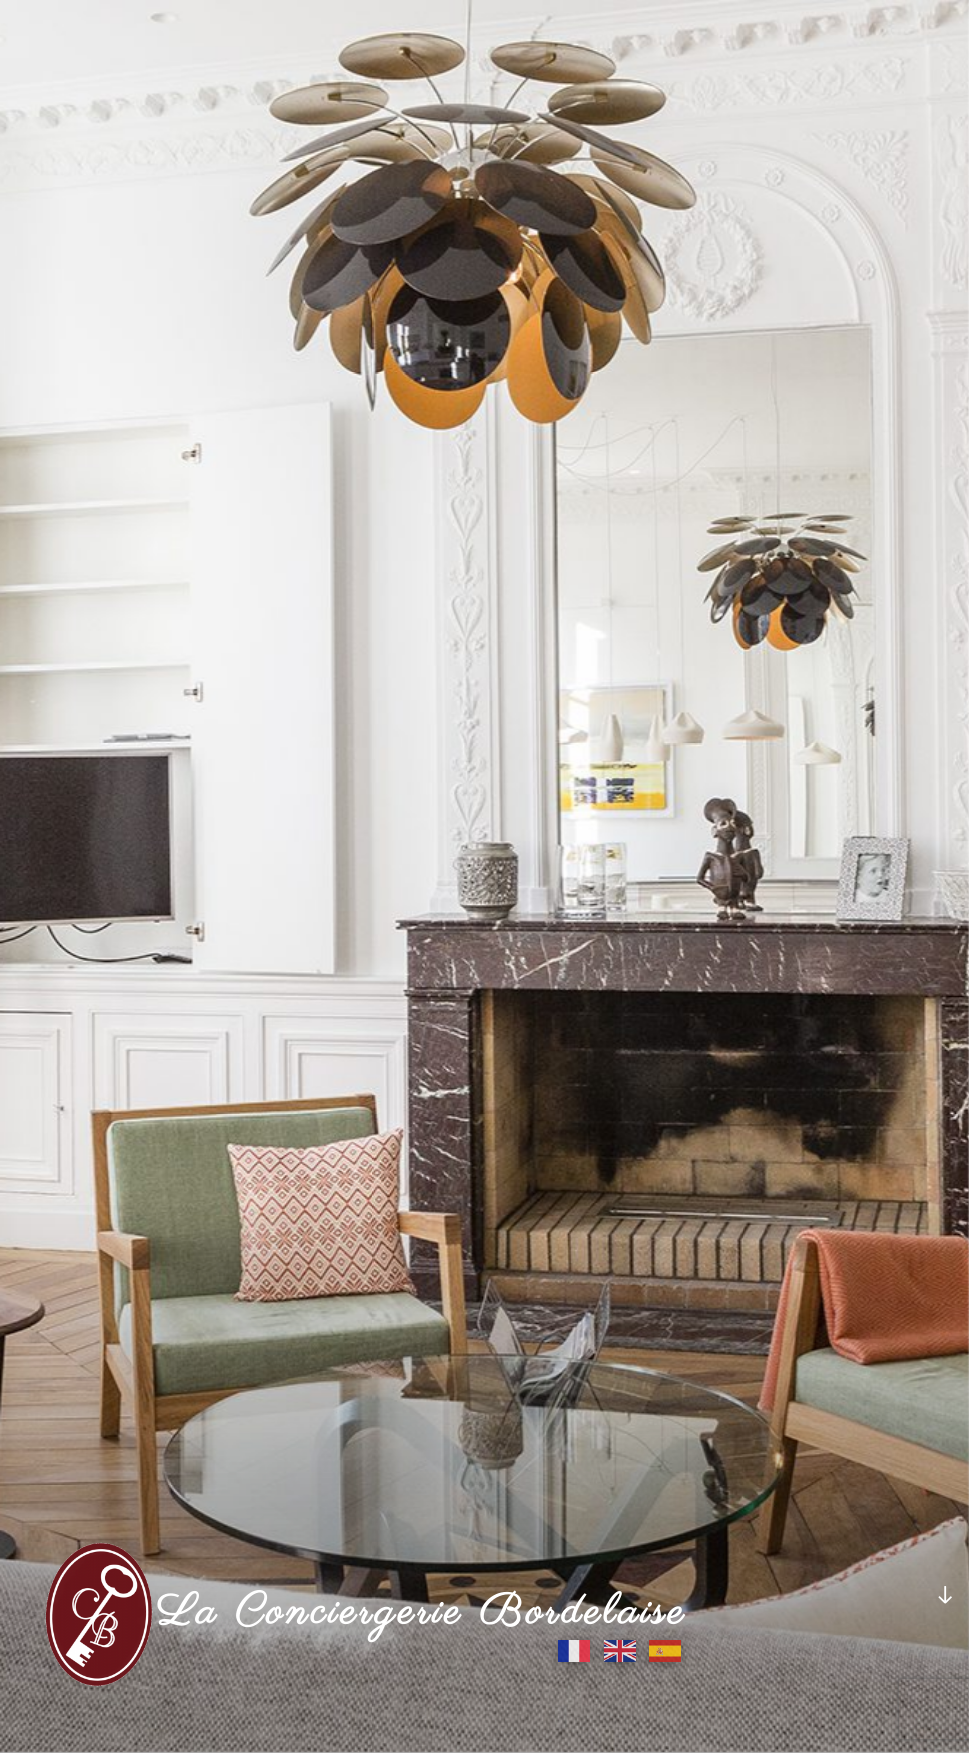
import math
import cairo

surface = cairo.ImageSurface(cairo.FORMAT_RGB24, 969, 1753)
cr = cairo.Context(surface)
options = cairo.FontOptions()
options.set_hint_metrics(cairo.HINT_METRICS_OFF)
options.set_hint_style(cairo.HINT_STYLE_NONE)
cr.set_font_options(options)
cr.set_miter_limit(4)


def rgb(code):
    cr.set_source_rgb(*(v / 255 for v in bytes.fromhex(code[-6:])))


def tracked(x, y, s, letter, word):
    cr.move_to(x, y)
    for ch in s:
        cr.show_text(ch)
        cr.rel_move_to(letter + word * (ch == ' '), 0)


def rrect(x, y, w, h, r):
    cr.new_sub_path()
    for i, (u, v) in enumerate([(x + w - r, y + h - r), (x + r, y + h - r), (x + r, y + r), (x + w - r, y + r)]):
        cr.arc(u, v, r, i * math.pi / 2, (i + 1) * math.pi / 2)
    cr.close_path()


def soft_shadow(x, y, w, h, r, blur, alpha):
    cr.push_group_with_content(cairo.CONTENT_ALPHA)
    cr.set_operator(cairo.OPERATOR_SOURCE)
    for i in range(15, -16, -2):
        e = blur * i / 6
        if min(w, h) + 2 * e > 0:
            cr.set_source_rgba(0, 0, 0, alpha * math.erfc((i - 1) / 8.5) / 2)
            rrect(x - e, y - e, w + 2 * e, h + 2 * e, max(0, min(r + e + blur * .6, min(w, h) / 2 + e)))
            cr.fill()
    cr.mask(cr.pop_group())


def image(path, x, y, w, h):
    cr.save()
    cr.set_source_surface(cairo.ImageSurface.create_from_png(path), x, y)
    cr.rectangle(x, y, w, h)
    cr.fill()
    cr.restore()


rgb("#fafafa")
cr.paint()
image("img/1.png", 0, 0, 969, 1753)
cr.save()
cr.set_fill_rule(cairo.FILL_RULE_EVEN_ODD)
cr.new_path()
cr.move_to(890, 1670)
cr.line_to(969, 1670)
cr.line_to(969, 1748)
cr.line_to(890, 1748)
cr.close_path()
cr.move_to(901, 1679)
cr.line_to(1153, 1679)
cr.curve_to(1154, 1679, 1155, 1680, 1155, 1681)
cr.line_to(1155, 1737)
cr.curve_to(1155, 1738, 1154, 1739, 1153, 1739)
cr.line_to(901, 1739)
cr.curve_to(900, 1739, 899, 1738, 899, 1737)
cr.line_to(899, 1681)
cr.curve_to(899, 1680, 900, 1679, 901, 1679)
cr.close_path()
cr.clip()
rgb("#808080")
soft_shadow(899, 1679, 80, 60, 2, 2.5, 1)
cr.restore()
gradient = cairo.LinearGradient(484, 1175, 485, 1753)
gradient.add_color_stop_rgba(0, 0, 0, 0, 0)
gradient.add_color_stop_rgba(0.75, 0, 0, 0, 0.3)
gradient.add_color_stop_rgba(1, 0, 0, 0, 0.3)
cr.set_source(gradient)
cr.rectangle(0, 1205, 969, 548)
cr.fill()
image("img/2.png", 45, 1542, 108, 145)
cr.save()
cr.set_fill_rule(cairo.FILL_RULE_EVEN_ODD)
cr.new_path()
cr.move_to(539, 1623)
cr.line_to(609, 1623)
cr.line_to(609, 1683)
cr.line_to(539, 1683)
cr.close_path()
cr.move_to(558, 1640)
cr.line_to(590, 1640)
cr.line_to(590, 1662)
cr.line_to(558, 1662)
cr.close_path()
cr.clip()
rgb("#000000")
soft_shadow(564, 1648, 20, 10, 0, 8, 0.8)
cr.restore()
image("img/6.png", 938, 1586, 14, 18)
cr.select_font_face("Parisienne", cairo.FONT_SLANT_NORMAL, cairo.FONT_WEIGHT_BOLD)
cr.set_font_size(43.25)
rgb("#ffffff")
tracked(157, 1623, "La Conciergerie Bordelaise", 3.45, 0)
image("img/3.png", 558, 1640, 32, 22)
cr.save()
cr.set_fill_rule(cairo.FILL_RULE_EVEN_ODD)
cr.new_path()
cr.move_to(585, 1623)
cr.line_to(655, 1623)
cr.line_to(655, 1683)
cr.line_to(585, 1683)
cr.close_path()
cr.move_to(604, 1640)
cr.line_to(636, 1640)
cr.line_to(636, 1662)
cr.line_to(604, 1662)
cr.close_path()
cr.clip()
rgb("#000000")
soft_shadow(610, 1648, 20, 10, 0, 8, 0.8)
cr.restore()
image("img/4.png", 604, 1640, 32, 22)
cr.save()
cr.set_fill_rule(cairo.FILL_RULE_EVEN_ODD)
cr.new_path()
cr.move_to(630, 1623)
cr.line_to(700, 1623)
cr.line_to(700, 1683)
cr.line_to(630, 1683)
cr.close_path()
cr.move_to(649, 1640)
cr.line_to(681, 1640)
cr.line_to(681, 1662)
cr.line_to(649, 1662)
cr.close_path()
cr.clip()
rgb("#000000")
soft_shadow(655, 1648, 20, 10, 0, 8, 0.8)
cr.restore()
image("img/5.png", 649, 1640, 32, 22)
surface.write_to_png("page.png")
